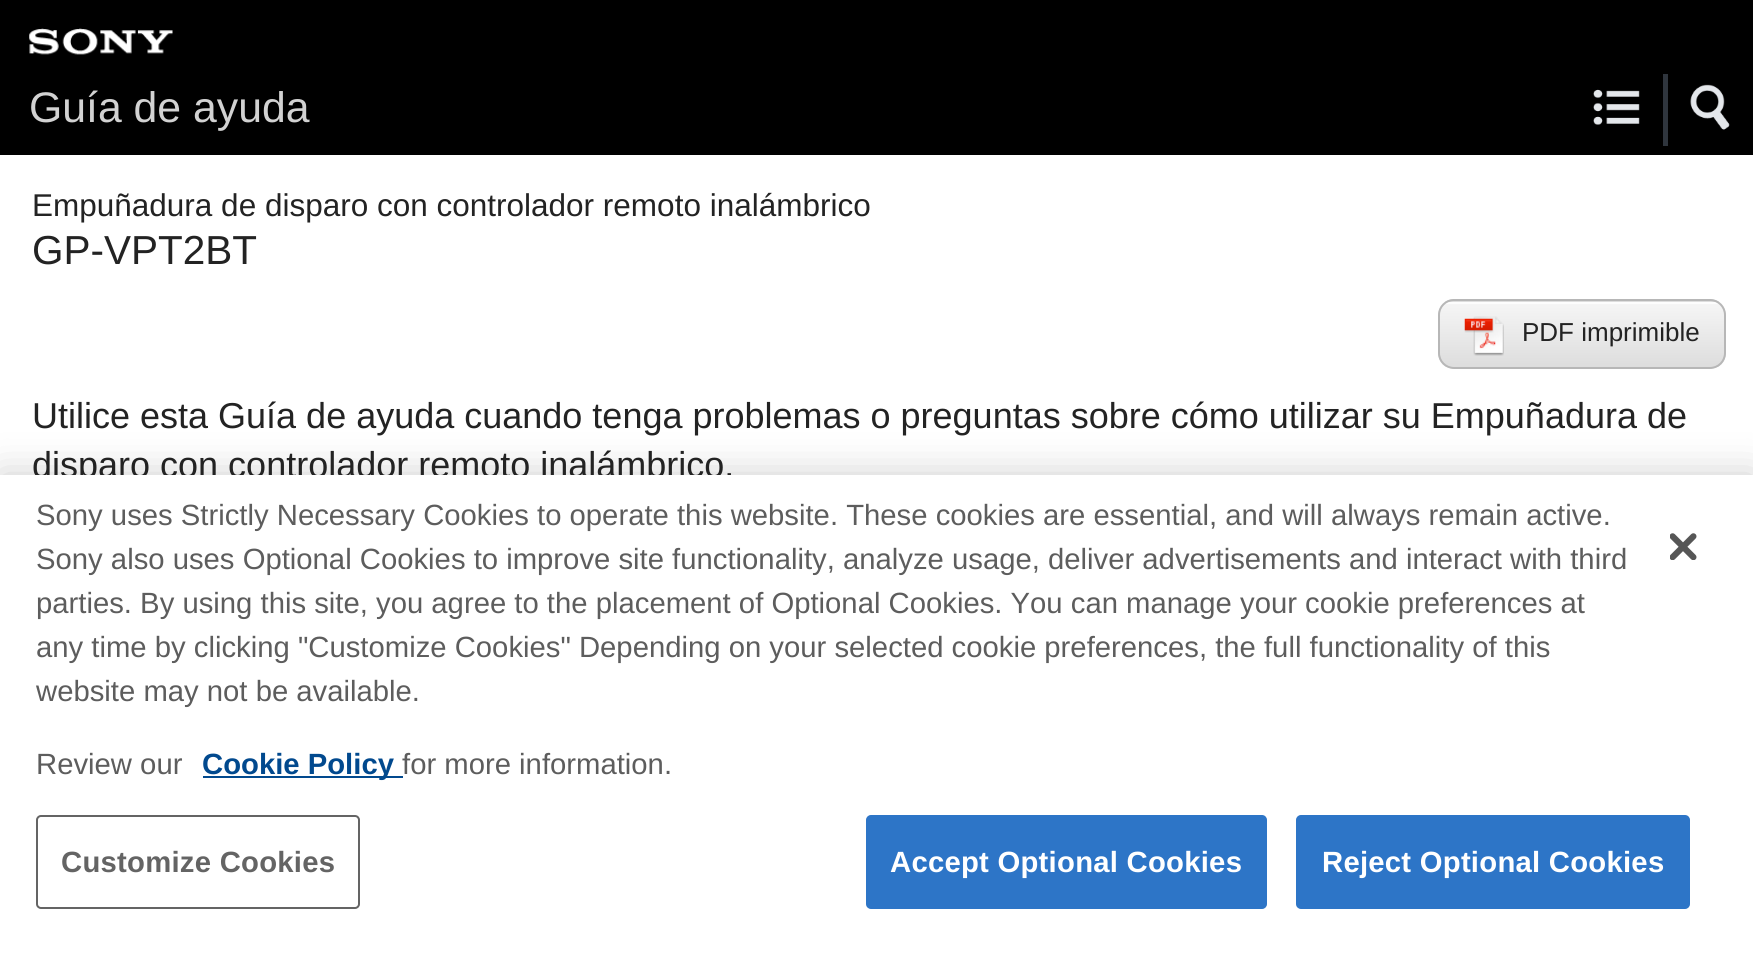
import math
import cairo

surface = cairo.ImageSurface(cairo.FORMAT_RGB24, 1753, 953)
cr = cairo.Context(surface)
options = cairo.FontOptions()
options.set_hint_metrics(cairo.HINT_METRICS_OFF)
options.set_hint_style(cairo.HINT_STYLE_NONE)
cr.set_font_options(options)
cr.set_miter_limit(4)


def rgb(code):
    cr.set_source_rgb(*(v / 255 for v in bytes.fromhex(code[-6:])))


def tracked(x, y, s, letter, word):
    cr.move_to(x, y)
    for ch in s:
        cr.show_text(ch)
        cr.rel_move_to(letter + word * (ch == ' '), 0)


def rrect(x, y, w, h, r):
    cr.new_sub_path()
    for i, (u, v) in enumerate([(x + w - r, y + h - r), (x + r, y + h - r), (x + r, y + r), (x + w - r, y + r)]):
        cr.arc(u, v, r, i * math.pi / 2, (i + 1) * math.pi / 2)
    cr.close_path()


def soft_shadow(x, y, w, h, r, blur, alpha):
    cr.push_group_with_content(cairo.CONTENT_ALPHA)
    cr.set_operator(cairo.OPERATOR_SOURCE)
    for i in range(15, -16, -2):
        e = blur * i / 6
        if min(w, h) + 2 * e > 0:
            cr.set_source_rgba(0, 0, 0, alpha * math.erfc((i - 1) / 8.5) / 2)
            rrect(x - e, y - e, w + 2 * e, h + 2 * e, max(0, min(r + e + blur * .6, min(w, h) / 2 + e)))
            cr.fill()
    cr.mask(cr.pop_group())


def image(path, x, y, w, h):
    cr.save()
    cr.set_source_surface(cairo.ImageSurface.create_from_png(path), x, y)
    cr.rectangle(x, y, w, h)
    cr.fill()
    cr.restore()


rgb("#ffffff")
cr.paint()
rgb("#000000")
cr.rectangle(0, 0, 1753, 155)
cr.fill()
image("img/1.png", 29, 28, 144, 27)
rgb("#2f353d")
cr.rectangle(1663, 74, 5, 72)
cr.fill()
image("img/2.png", 1593, 89, 47, 36)
image("img/3.png", 1690, 84, 40, 46)
cr.save()
rrect(1438, 299, 288, 70, 16)
cr.clip()
gradient = cairo.LinearGradient(1582, 236, 1582, 302)
gradient.add_color_stop_rgba(0, 0.992, 0.992, 0.992, 1)
gradient.add_color_stop_rgba(0.03, 0.992, 0.992, 0.992, 1)
gradient.add_color_stop_rgba(0.03, 0.961, 0.961, 0.961, 1)
gradient.add_color_stop_rgba(1, 0.867, 0.867, 0.867, 1)
cr.set_source(gradient)
cr.rectangle(1438, 299, 288, 3)
cr.fill()
gradient = cairo.LinearGradient(1582, 302, 1582, 367)
gradient.add_color_stop_rgba(0, 0.992, 0.992, 0.992, 1)
gradient.add_color_stop_rgba(0.03, 0.992, 0.992, 0.992, 1)
gradient.add_color_stop_rgba(0.03, 0.961, 0.961, 0.961, 1)
gradient.add_color_stop_rgba(1, 0.867, 0.867, 0.867, 1)
cr.set_source(gradient)
cr.rectangle(1438, 302, 288, 65)
cr.fill()
cr.restore()
rrect(1439, 300, 286, 68, 15)
rgb("#b7b7b7")
cr.stroke()
image("img/4.png", 1464, 316, 40, 40)
rgb("#000000")
soft_shadow(0, 475, 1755, 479, 0, 20, 0.2)
cr.select_font_face("Liberation Sans")
cr.set_font_size(42.75)
rgb("#d2d2d2")
cr.move_to(29, 122)
cr.show_text("Guía de ayuda")
cr.set_font_size(31.5)
rgb("#232323")
cr.move_to(32, 216)
cr.show_text("Empuñadura de disparo con controlador remoto inalámbrico")
cr.set_font_size(40.5)
cr.move_to(32, 264)
cr.show_text("GP-VPT2BT")
cr.set_font_size(26)
cr.move_to(1522, 341)
cr.show_text("PDF imprimible")
cr.set_font_size(36)
cr.move_to(32, 428)
cr.show_text("Utilice esta Guía de ayuda cuando tenga problemas o preguntas sobre cómo utilizar su Empuñadura de")
cr.move_to(32, 477)
cr.show_text("disparo con controlador remoto inalámbrico.")
rgb("#ffffff")
cr.rectangle(0, 475, 1753, 478)
cr.fill()
cr.set_font_size(29.27)
rgb("#5d5d5d")
for x, y, s in [
    (36, 525, "Sony uses Strictly Necessary Cookies to operate this website. These cookies are essential, and will always remain active."),
    (36, 569, "Sony also uses Optional Cookies to improve site functionality, analyze usage, deliver advertisements and interact with third"),
    (36, 613, "parties. By using this site, you agree to the placement of Optional Cookies. You can manage your cookie preferences at"),
    (36, 657, "any time by clicking \"Customize Cookies\" Depending on your selected cookie preferences, the full functionality of this"),
    (36, 701, "website may not be available."),
    (36, 774, "Review our"),
]:
    cr.move_to(x, y)
    cr.show_text(s)
rgb("#01498e")
cr.rectangle(203, 776, 200, 2)
cr.fill()
cr.select_font_face("Liberation Sans", cairo.FONT_SLANT_NORMAL, cairo.FONT_WEIGHT_BOLD)
cr.move_to(202, 774)
cr.show_text("Cookie Policy")
cr.select_font_face("Liberation Sans")
rgb("#5d5d5d")
cr.move_to(402, 774)
cr.show_text("for more information.")
rrect(37, 816, 322, 92, 4)
rgb("#646464")
cr.stroke()
cr.select_font_face("Liberation Sans", cairo.FONT_SLANT_NORMAL, cairo.FONT_WEIGHT_BOLD)
tracked(61, 872, "Customize Cookies", 0.25, 0)
rgb("#2d75c7")
rrect(867, 816, 399, 92, 4)
cr.fill_preserve()
cr.stroke()
rgb("#ffffff")
tracked(890, 872, "Accept Optional Cookies", 0.25, 0)
rgb("#2d75c7")
rrect(1297, 816, 392, 92, 4)
cr.fill_preserve()
cr.stroke()
rgb("#ffffff")
tracked(1322, 872, "Reject Optional Cookies", 0.25, 0)
image("img/5.png", 1670, 533, 27, 27)
surface.write_to_png("page.png")
